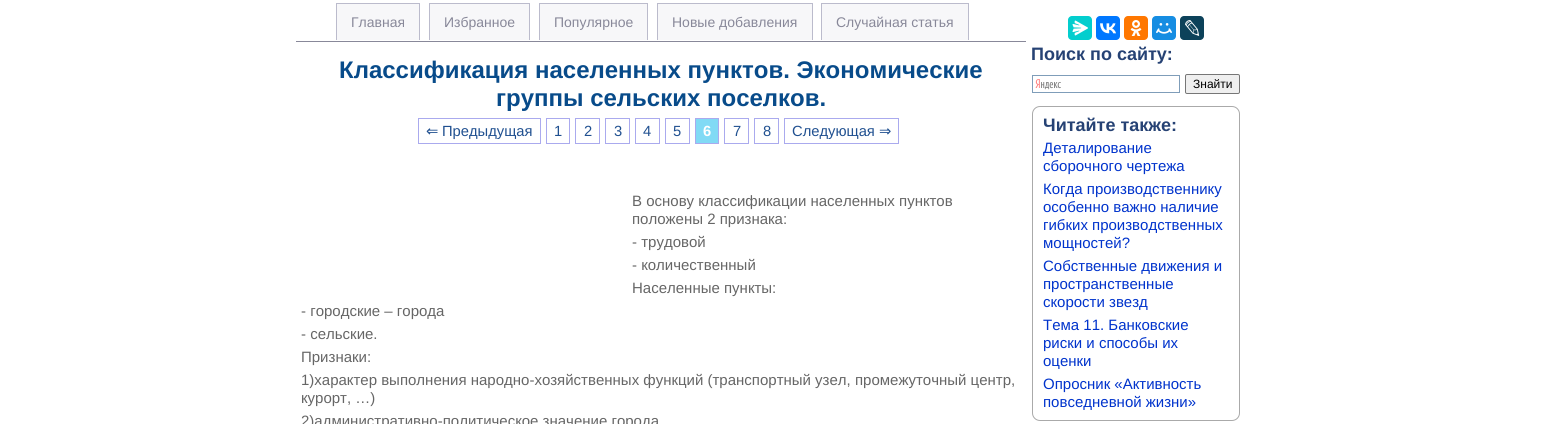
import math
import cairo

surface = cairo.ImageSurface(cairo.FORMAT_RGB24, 1542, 424)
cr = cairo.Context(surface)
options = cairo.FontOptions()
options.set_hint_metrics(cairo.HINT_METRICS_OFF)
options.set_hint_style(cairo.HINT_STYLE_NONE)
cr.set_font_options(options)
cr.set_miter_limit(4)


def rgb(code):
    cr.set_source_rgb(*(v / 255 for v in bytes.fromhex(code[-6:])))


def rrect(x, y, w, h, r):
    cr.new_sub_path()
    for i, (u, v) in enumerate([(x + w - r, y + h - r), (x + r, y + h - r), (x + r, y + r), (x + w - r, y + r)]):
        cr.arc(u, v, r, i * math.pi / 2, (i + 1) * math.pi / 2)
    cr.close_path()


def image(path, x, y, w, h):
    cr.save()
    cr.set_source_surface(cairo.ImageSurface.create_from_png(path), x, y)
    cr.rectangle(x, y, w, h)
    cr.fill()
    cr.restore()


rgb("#ffffff")
cr.paint()
for x, y, w, h, color in [
    (296, 41, 730, 1, "#888899"),
    (337, 4, 82, 36, "#f7f7f9"),
    (336, 3, 84, 1, "#bbbbcc"),
    (419, 3, 1, 37, "#bbbbcc"),
    (336, 3, 1, 37, "#bbbbcc"),
    (430, 4, 99, 36, "#f7f7f9"),
    (429, 3, 101, 1, "#bbbbcc"),
    (529, 3, 1, 37, "#bbbbcc"),
    (429, 3, 1, 37, "#bbbbcc"),
    (540, 4, 107, 36, "#f7f7f9"),
    (539, 3, 109, 1, "#bbbbcc"),
    (647, 3, 1, 37, "#bbbbcc"),
    (539, 3, 1, 37, "#bbbbcc"),
    (658, 4, 154, 36, "#f7f7f9"),
    (657, 3, 156, 1, "#bbbbcc"),
    (812, 3, 1, 37, "#bbbbcc"),
    (657, 3, 1, 37, "#bbbbcc"),
    (822, 4, 146, 36, "#f7f7f9"),
    (821, 3, 148, 1, "#bbbbcc"),
    (968, 3, 1, 37, "#bbbbcc"),
    (821, 3, 1, 37, "#bbbbcc"),
]:
    rgb(color)
    cr.rectangle(x, y, w, h)
    cr.fill()
cr.rectangle(418.5, 118.5, 122, 25)
rgb("#aaaaee")
cr.set_line_width(1)
cr.stroke()
cr.rectangle(546.5, 118.5, 23, 25)
cr.stroke()
cr.rectangle(575.5, 118.5, 24, 25)
cr.stroke()
cr.rectangle(605.5, 118.5, 24, 25)
cr.stroke()
cr.rectangle(635.5, 118.5, 24, 25)
cr.stroke()
cr.rectangle(665.5, 118.5, 24, 25)
cr.stroke()
rgb("#81daf5")
cr.rectangle(695.5, 118.5, 23, 25)
cr.fill_preserve()
rgb("#aaaaee")
cr.stroke()
cr.rectangle(724.5, 118.5, 24, 25)
cr.stroke()
cr.rectangle(754.5, 118.5, 24, 25)
cr.stroke()
cr.rectangle(784.5, 118.5, 114, 25)
cr.stroke()
rgb("#03cece")
rrect(1068, 16, 24, 24, 4)
cr.fill()
image("img/1.png", 1072, 20, 16, 16)
rgb("#0077ff")
rrect(1096, 16, 24, 24, 4)
cr.fill()
image("img/2.png", 1100, 23, 16, 11)
rgb("#ff7700")
rrect(1124, 16, 24, 24, 4)
cr.fill()
image("img/3.png", 1130, 20, 12, 16)
rgb("#168de2")
rrect(1152, 16, 24, 24, 4)
cr.fill()
image("img/4.png", 1156, 23, 16, 11)
rgb("#0d425a")
rrect(1180, 16, 24, 24, 4)
cr.fill()
image("img/5.png", 1185, 20, 15, 16)
image("img/6.png", 1035, 79, 26, 11)
cr.rectangle(1032.5, 75.5, 147, 17)
rgb("#7f9db9")
cr.stroke()
rgb("#efefef")
rrect(1185.5, 74.5, 54, 19, 1.5)
cr.fill_preserve()
rgb("#767676")
cr.stroke()
rrect(1032.5, 106.5, 207, 314, 7.5)
rgb("#aaaaaa")
cr.stroke()
cr.select_font_face("Liberation Sans")
cr.set_font_size(14)
rgb("#888899")
for x, y, s in [
    (351, 27, "Главная"),
    (444, 27, "Избранное"),
    (554, 27, "Популярное"),
    (672, 27, "Новые добавления"),
    (836, 27, "Случайная статья"),
]:
    cr.move_to(x, y)
    cr.show_text(s)
cr.select_font_face("Liberation Sans", cairo.FONT_SLANT_NORMAL, cairo.FONT_WEIGHT_BOLD)
cr.set_font_size(24)
rgb("#084b8a")
cr.move_to(339, 78)
cr.show_text("Классификация населенных пунктов. Экономические")
cr.move_to(496, 106)
cr.show_text("группы сельских поселков.")
cr.select_font_face("DejaVu Sans")
cr.set_font_size(14.75)
rgb("#205090")
cr.move_to(426, 136)
cr.show_text("⇐")
cr.select_font_face("Liberation Sans")
for x, y, s in [
    (442, 136, "Предыдущая"),
    (554, 136, "1"),
    (584, 136, "2"),
    (614, 136, "3"),
    (643, 136, "4"),
    (673, 136, "5"),
]:
    cr.move_to(x, y)
    cr.show_text(s)
cr.select_font_face("Liberation Sans", cairo.FONT_SLANT_NORMAL, cairo.FONT_WEIGHT_BOLD)
rgb("#ffffff")
cr.move_to(703, 136)
cr.show_text("6")
cr.select_font_face("Liberation Sans")
rgb("#205090")
for x, y, s in [
    (733, 136, "7"),
    (763, 136, "8"),
    (792, 136, "Следующая"),
]:
    cr.move_to(x, y)
    cr.show_text(s)
cr.select_font_face("DejaVu Sans")
cr.move_to(879, 136)
cr.show_text("⇒")
cr.select_font_face("Liberation Sans")
cr.set_font_size(15)
rgb("#666666")
for x, y, s in [
    (632, 206, "В основу классификации населенных пунктов"),
    (632, 224, "положены 2 признака:"),
    (632, 247, "- трудовой"),
    (632, 270, "- количественный"),
    (632, 293, "Населенные пункты:"),
    (301, 316, "- городские – города"),
    (301, 339, "- сельские."),
    (301, 362, "Признаки:"),
    (301, 385, "1)характер выполнения народно-хозяйственных функций (транспортный узел, промежуточный центр,"),
    (301, 403, "курорт, …)"),
    (301, 426, "2)административно-политическое значение города"),
]:
    cr.move_to(x, y)
    cr.show_text(s)
cr.select_font_face("Liberation Sans", cairo.FONT_SLANT_NORMAL, cairo.FONT_WEIGHT_BOLD)
cr.set_font_size(18)
rgb("#264274")
cr.move_to(1031, 60)
cr.show_text("Поиск по сайту:")
cr.select_font_face("Liberation Sans")
cr.set_font_size(12)
rgb("#000000")
cr.move_to(1193, 88)
cr.show_text("Знайти")
cr.select_font_face("Liberation Sans", cairo.FONT_SLANT_NORMAL, cairo.FONT_WEIGHT_BOLD)
cr.set_font_size(18)
rgb("#264274")
cr.move_to(1043, 131)
cr.show_text("Читайте также:")
cr.select_font_face("Liberation Sans")
cr.set_font_size(15)
rgb("#0033cc")
for x, y, s in [
    (1043, 153, "Деталирование"),
    (1043, 171, "сборочного чертежа"),
    (1043, 194, "Когда производственнику"),
    (1043, 212, "особенно важно наличие"),
    (1043, 230, "гибких производственных"),
    (1043, 248, "мощностей?"),
    (1043, 271, "Собственные движения и"),
    (1043, 289, "пространственные"),
    (1043, 307, "скорости звезд"),
    (1043, 330, "Тема 11. Банковские"),
    (1043, 348, "риски и способы их"),
    (1043, 366, "оценки"),
    (1043, 389, "Опросник «Активность"),
    (1043, 407, "повседневной жизни»"),
]:
    cr.move_to(x, y)
    cr.show_text(s)
surface.write_to_png("page.png")
